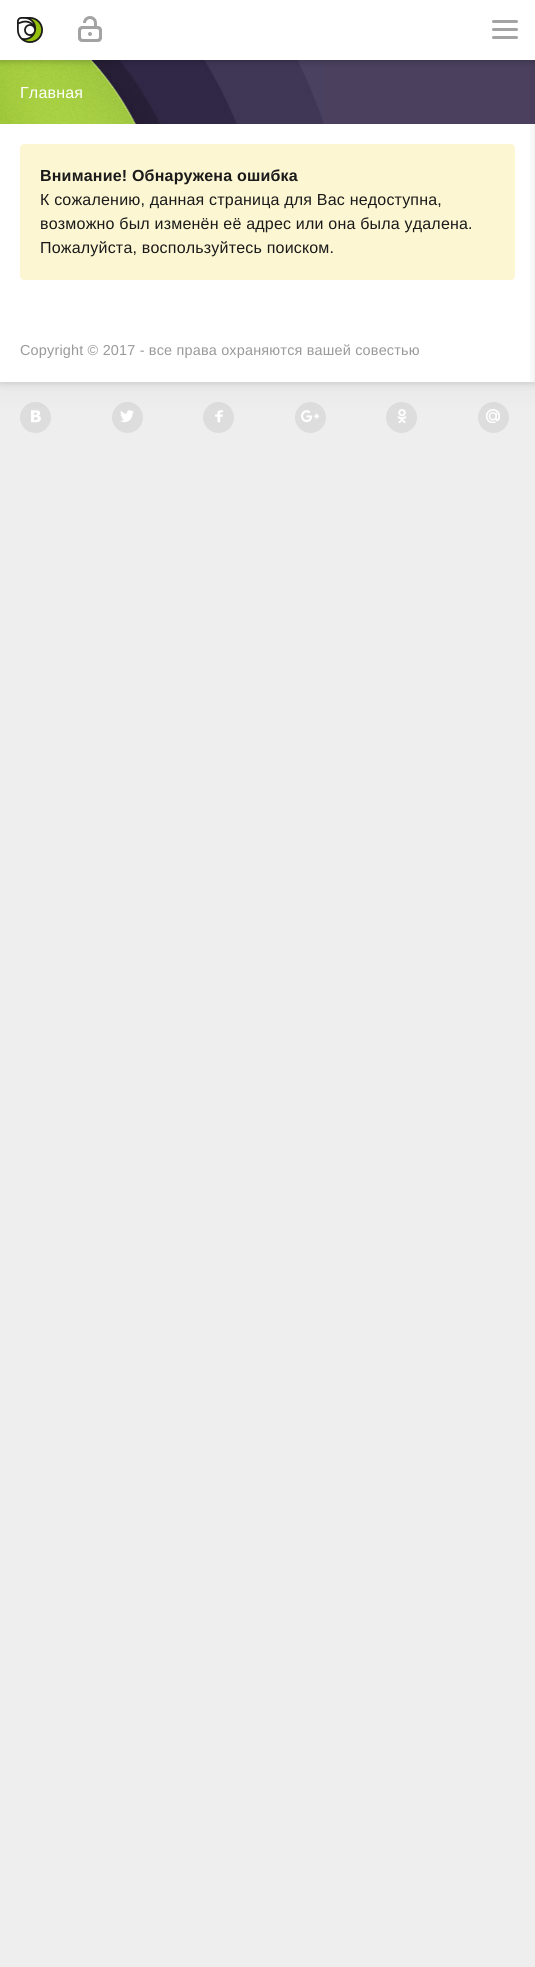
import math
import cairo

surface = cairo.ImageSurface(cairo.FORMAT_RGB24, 535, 1967)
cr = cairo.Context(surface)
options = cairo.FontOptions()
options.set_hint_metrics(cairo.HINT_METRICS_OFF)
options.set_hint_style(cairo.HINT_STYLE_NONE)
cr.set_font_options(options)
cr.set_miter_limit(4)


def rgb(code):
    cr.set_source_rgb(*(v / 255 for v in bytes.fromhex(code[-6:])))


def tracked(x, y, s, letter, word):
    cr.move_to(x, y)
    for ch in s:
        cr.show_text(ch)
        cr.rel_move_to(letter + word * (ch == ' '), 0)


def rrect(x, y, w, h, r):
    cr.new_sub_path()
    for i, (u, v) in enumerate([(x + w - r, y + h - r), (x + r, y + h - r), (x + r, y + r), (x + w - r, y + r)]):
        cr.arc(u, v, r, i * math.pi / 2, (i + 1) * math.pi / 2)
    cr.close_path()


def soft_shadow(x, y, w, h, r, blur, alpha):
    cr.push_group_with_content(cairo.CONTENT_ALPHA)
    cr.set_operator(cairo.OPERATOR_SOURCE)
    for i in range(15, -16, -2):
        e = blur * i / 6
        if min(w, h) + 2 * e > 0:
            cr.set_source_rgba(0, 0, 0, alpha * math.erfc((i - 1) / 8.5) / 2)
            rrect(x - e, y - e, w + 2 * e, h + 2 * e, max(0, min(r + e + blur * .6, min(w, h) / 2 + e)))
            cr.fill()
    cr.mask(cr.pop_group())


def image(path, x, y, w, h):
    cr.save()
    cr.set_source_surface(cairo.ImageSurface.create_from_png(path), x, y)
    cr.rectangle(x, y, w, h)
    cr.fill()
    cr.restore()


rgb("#eeeeee")
cr.paint()
rgb("#dddddd")
cr.arc(35.5, 417.5, 15.5, 0, 2 * math.pi)
cr.fill()
image("img/4.png", 31, 410, 10, 13)
cr.arc(127.5, 417.5, 15.5, 0, 2 * math.pi)
cr.fill()
image("img/5.png", 120, 410, 14, 13)
cr.arc(218.5, 417.5, 15.5, 0, 2 * math.pi)
cr.fill()
image("img/6.png", 215, 410, 8, 13)
cr.arc(310.5, 417.5, 15.5, 0, 2 * math.pi)
cr.fill()
image("img/7.png", 301, 410, 18, 13)
cr.arc(401.5, 417.5, 15.5, 0, 2 * math.pi)
cr.fill()
image("img/8.png", 397, 409, 10, 14)
cr.arc(493.5, 417.5, 15.5, 0, 2 * math.pi)
cr.fill()
image("img/9.png", 486, 409, 14, 14)
rgb("#000000")
soft_shadow(0, 0, 535, 382, 0, 17.5, 0.06)
soft_shadow(0, 2, 535, 382, 0, 3, 0.11)
for x, y, w, h, color in [
    (0, 124, 534, 258, "#ffffff"),
    (534, 124, 1, 258, "#f0f0f0"),
    (324, 60, 210, 64, "#4b415f"),
]:
    rgb(color)
    cr.rectangle(x, y, w, h)
    cr.fill()
gradient = cairo.LinearGradient(521, 191, 534, 191)
gradient.add_color_stop_rgba(0, 0, 0, 0, 0)
gradient.add_color_stop_rgba(1, 0, 0, 0, 0.03)
cr.set_source(gradient)
cr.rectangle(530, 60, 4, 322)
cr.fill()
rgb("#473d59")
cr.rectangle(534, 60, 1, 64)
cr.fill()
image("img/3.png", 0, 60, 324, 64)
rgb("#000000")
soft_shadow(0, 2, 535, 60, 0, 3, 0.2)
rgb("#ffffff")
cr.rectangle(0, 0, 535, 60)
cr.fill()
image("img/1.png", 17, 17, 26, 26)
image("img/2.png", 78, 16, 24, 26)
rgb("#a3a3a3")
rrect(492, 20, 26, 3, 1.5)
cr.fill()
rrect(492, 28, 26, 3, 1.5)
cr.fill()
rrect(492, 36, 26, 3, 1.5)
cr.fill()
rgb("#fcf6d2")
rrect(20, 144, 495, 136, 4)
cr.fill()
cr.select_font_face("Liberation Sans")
cr.set_font_size(16)
rgb("#ffffff")
tracked(20, 98, "Главная", 0.2, 0)
cr.select_font_face("Liberation Sans", cairo.FONT_SLANT_NORMAL, cairo.FONT_WEIGHT_BOLD)
rgb("#1a1a1a")
tracked(40, 181, "Внимание! Обнаружена ошибка", 0.2, 0)
cr.select_font_face("Liberation Sans")
for x, y, s in [
    (40, 205, "К сожалению, данная страница для Вас недоступна,"),
    (40, 229, "возможно был изменён её адрес или она была удалена."),
    (40, 253, "Пожалуйста, воспользуйтесь поиском."),
]:
    tracked(x, y, s, 0.2, 0)
cr.set_font_size(14.4)
rgb("#999999")
tracked(20, 355, "Copyright © 2017 - все права охраняются вашей совестью", 0.2, 0)
surface.write_to_png("page.png")
